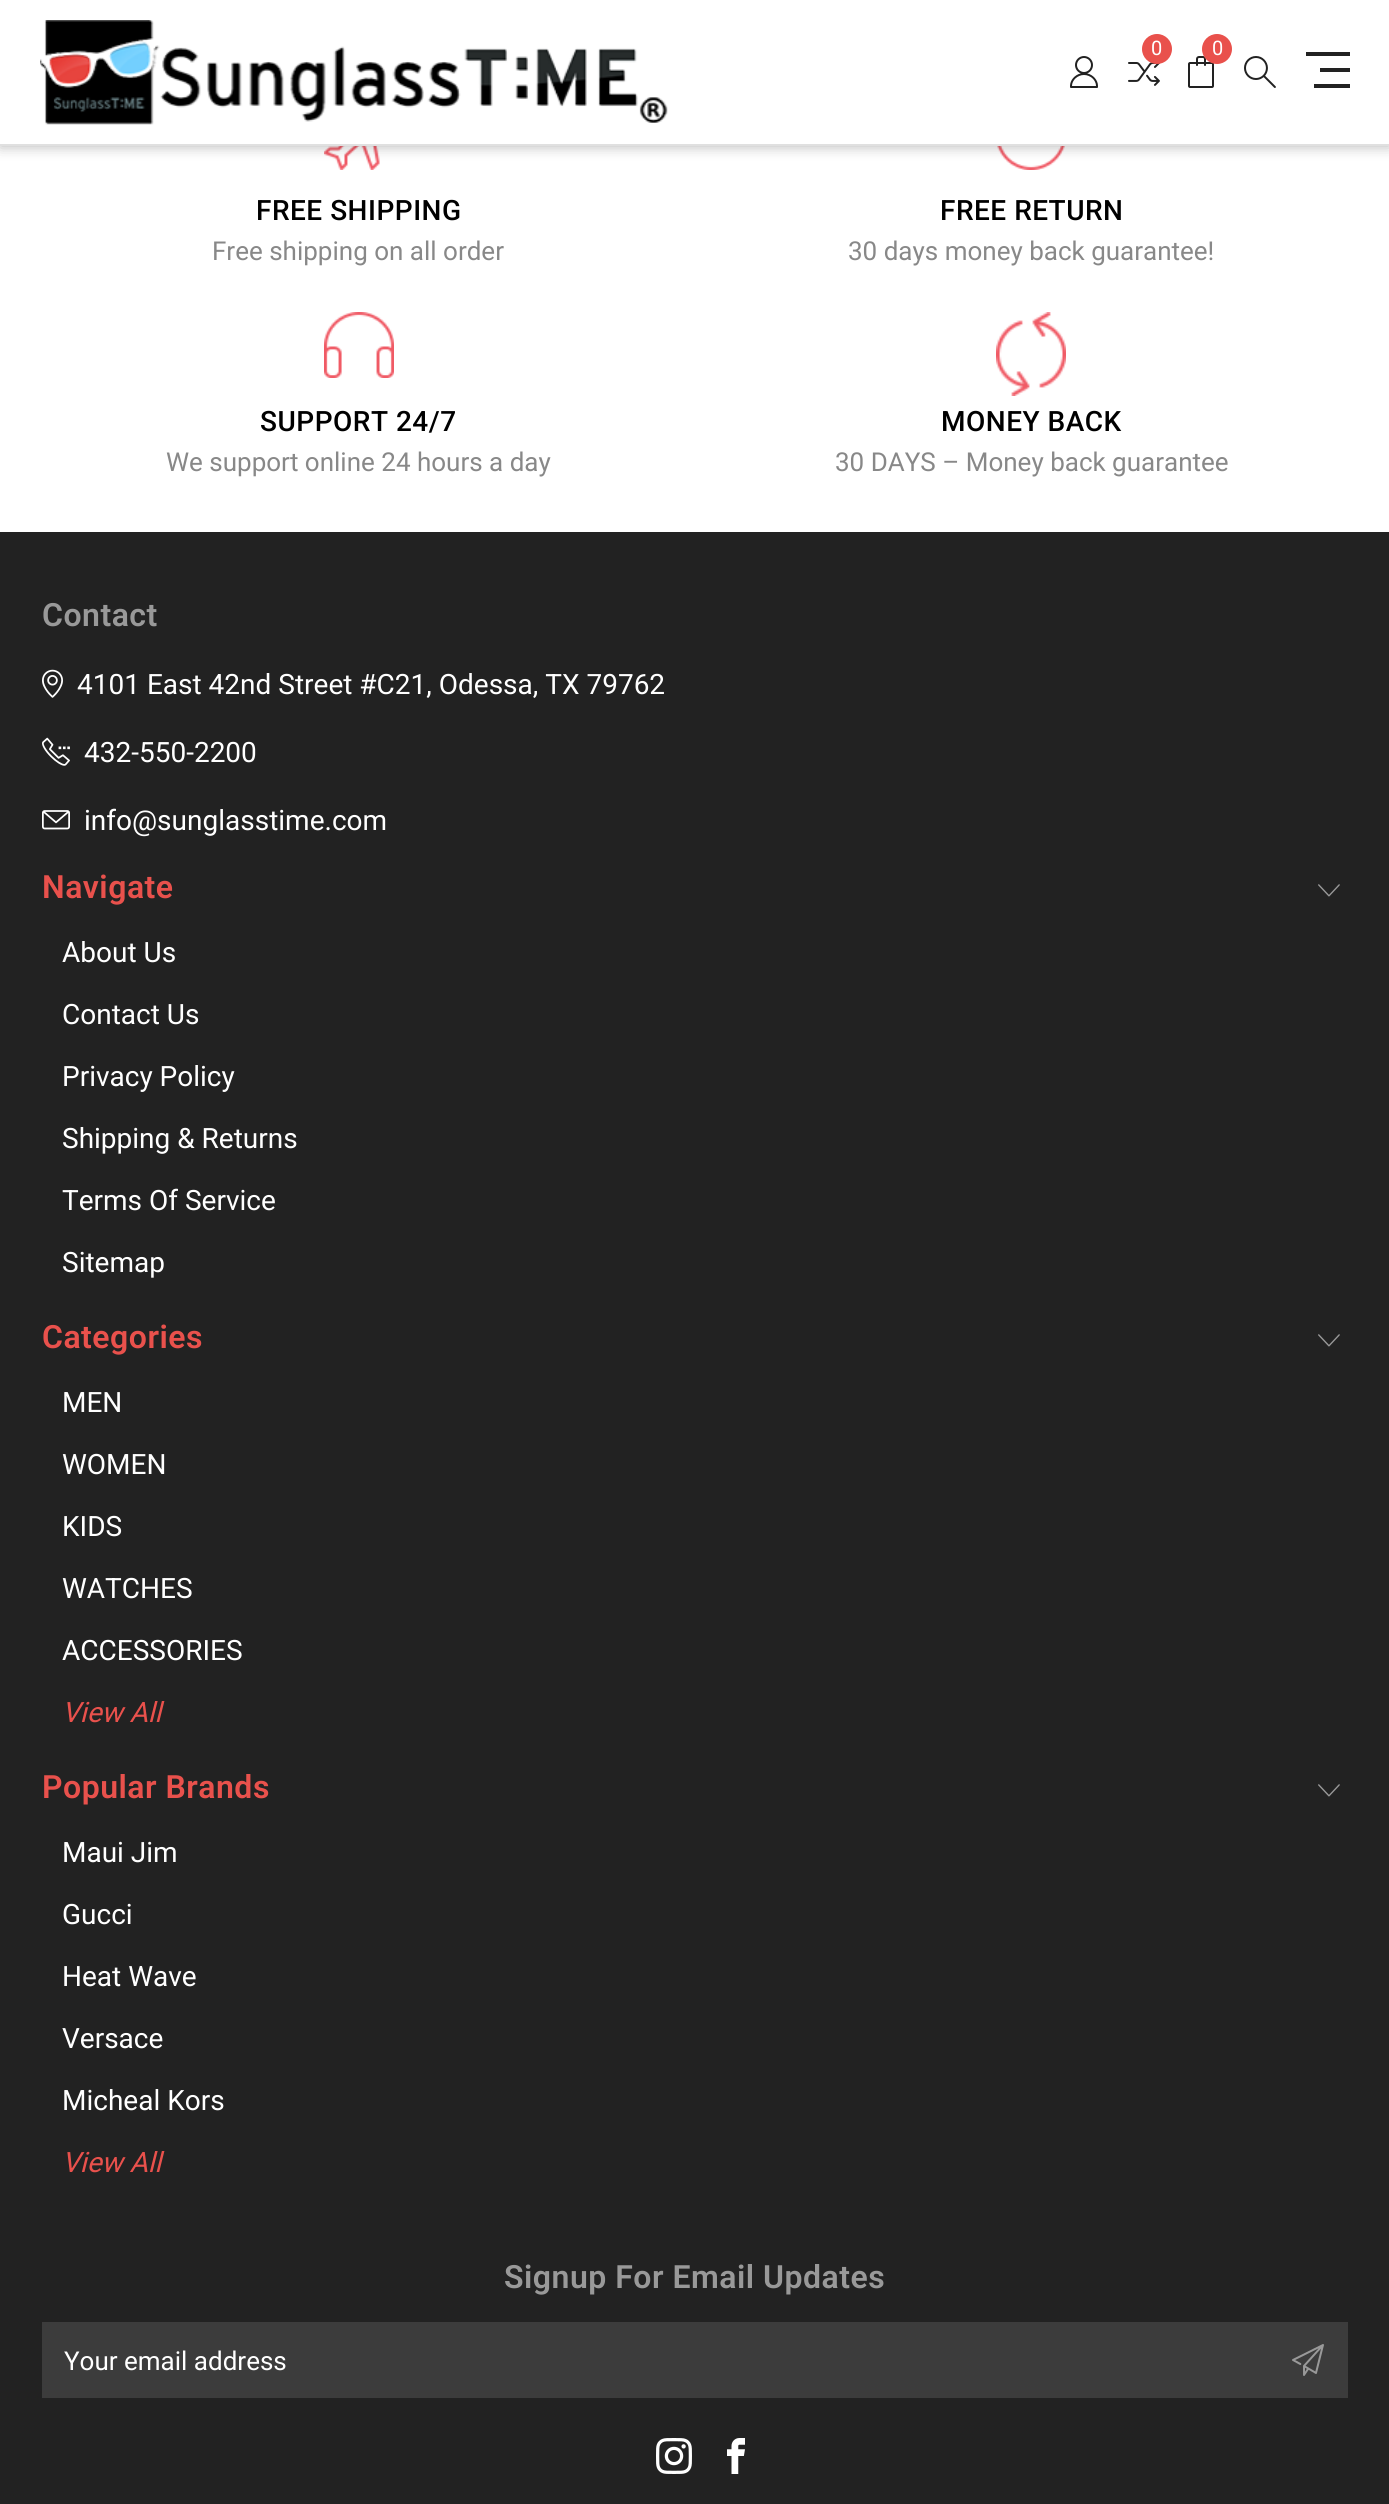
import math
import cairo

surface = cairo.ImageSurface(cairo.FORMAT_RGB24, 1389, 2504)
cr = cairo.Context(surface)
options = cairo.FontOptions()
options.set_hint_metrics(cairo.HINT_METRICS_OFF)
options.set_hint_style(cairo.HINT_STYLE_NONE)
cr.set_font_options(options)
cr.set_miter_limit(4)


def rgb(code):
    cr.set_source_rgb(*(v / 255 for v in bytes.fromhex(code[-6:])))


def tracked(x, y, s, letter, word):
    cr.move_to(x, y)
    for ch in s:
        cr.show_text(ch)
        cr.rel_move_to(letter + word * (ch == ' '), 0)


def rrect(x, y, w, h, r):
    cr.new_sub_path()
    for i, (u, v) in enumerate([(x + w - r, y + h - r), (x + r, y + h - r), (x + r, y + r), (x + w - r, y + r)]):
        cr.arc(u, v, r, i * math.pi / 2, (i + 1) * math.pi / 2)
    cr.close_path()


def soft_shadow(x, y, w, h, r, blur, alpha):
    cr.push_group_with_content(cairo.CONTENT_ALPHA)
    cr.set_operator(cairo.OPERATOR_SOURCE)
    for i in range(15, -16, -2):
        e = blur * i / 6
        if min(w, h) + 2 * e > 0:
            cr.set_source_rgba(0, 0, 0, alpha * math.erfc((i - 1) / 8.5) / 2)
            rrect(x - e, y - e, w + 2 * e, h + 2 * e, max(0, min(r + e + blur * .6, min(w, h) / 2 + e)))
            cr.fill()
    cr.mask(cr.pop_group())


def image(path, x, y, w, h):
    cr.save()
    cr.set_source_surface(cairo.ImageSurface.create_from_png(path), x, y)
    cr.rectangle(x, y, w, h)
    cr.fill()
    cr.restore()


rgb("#ffffff")
cr.paint()
image("img/6.png", 324, 146, 56, 24)
image("img/7.png", 997, 146, 68, 24)
rgb("#000000")
soft_shadow(0, 0, 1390, 146, 0, 7, 0.3)
rgb("#ffffff")
cr.rectangle(0, 0, 1389, 144)
cr.fill()
rgb("#e0e0e0")
cr.rectangle(0, 144, 1389, 2)
cr.fill()
image("img/1.png", 40, 20, 628, 105)
image("img/2.png", 1128, 62, 32, 24)
rgb("#e9514c")
cr.arc(1157, 49, 15, 0, 2 * math.pi)
cr.fill()
image("img/3.png", 1188, 56, 26, 32)
cr.arc(1217, 49, 15, 0, 2 * math.pi)
cr.fill()
image("img/4.png", 1070, 56, 28, 32)
image("img/5.png", 1244, 56, 32, 32)
for x, y, w, h, color in [
    (1306, 52, 44, 4, "#222222"),
    (1320, 68, 30, 4, "#222222"),
    (1314, 84, 36, 4, "#222222"),
]:
    rgb(color)
    cr.rectangle(x, y, w, h)
    cr.fill()
image("img/8.png", 324, 312, 70, 66)
image("img/9.png", 996, 312, 70, 84)
cr.rectangle(0, 532, 1389, 1972)
cr.fill()
image("img/10.png", 42, 669, 21, 29)
image("img/11.png", 42, 737, 28, 29)
image("img/12.png", 42, 810, 28, 20)
image("img/13.png", 1318, 884, 22, 13)
image("img/13.png", 1318, 1334, 22, 13)
image("img/13.png", 1318, 1784, 22, 13)
rgb("#3c3c3c")
cr.rectangle(42, 2322, 1306, 76)
cr.fill()
image("img/14.png", 1292, 2344, 32, 32)
image("img/15.png", 656, 2438, 36, 36)
image("img/16.png", 727, 2438, 18, 36)
cr.select_font_face("Roboto")
cr.set_font_size(20)
rgb("#ffffff")
cr.move_to(1151, 55)
cr.show_text("0")
cr.move_to(1212, 55)
cr.show_text("0")
cr.select_font_face("Roboto Medium")
cr.set_font_size(28)
rgb("#000000")
tracked(256, 220, "FREE SHIPPING", 0.5, 0)
cr.select_font_face("Roboto")
cr.set_font_size(26)
rgb("#888888")
cr.move_to(212, 260)
cr.show_text("Free shipping on all order")
cr.select_font_face("Roboto Medium")
cr.set_font_size(28)
rgb("#000000")
tracked(940, 220, "FREE RETURN", 0.5, 0)
cr.select_font_face("Roboto")
cr.set_font_size(26)
rgb("#888888")
cr.move_to(848, 260)
cr.show_text("30 days money back guarantee!")
cr.select_font_face("Roboto Medium")
cr.set_font_size(28)
rgb("#000000")
tracked(260, 431, "SUPPORT 24/7", 0.5, 0)
cr.select_font_face("Roboto")
cr.set_font_size(26)
rgb("#888888")
cr.move_to(166, 471)
cr.show_text("We support online 24 hours a day")
cr.select_font_face("Roboto Medium")
cr.set_font_size(28)
rgb("#000000")
tracked(941, 431, "MONEY BACK", 0.5, 0)
cr.select_font_face("Roboto")
cr.set_font_size(26)
rgb("#888888")
cr.move_to(835, 471)
cr.show_text("30 DAYS – Money back guarantee")
cr.select_font_face("Roboto SemiBold")
cr.set_font_size(32)
rgb("#999999")
tracked(42, 626, "Contact", 0.5, 0)
cr.select_font_face("Roboto")
cr.set_font_size(28)
rgb("#ffffff")
for x, y, s in [
    (77, 694, "4101 East 42nd Street #C21, Odessa, TX 79762"),
    (84, 762, "432-550-2200"),
    (84, 830, "info@sunglasstime.com"),
]:
    cr.move_to(x, y)
    cr.show_text(s)
cr.select_font_face("Roboto SemiBold")
cr.set_font_size(32)
rgb("#e9514c")
tracked(42, 898, "Navigate", 0.5, 0)
cr.select_font_face("Roboto")
cr.set_font_size(28)
rgb("#ffffff")
for x, y, s in [
    (62, 962, "About Us"),
    (62, 1024, "Contact Us"),
    (62, 1086, "Privacy Policy"),
    (62, 1148, "Shipping & Returns"),
    (62, 1210, "Terms Of Service"),
    (62, 1272, "Sitemap"),
]:
    cr.move_to(x, y)
    cr.show_text(s)
cr.select_font_face("Roboto SemiBold")
cr.set_font_size(32)
rgb("#e9514c")
tracked(42, 1348, "Categories", 0.5, 0)
cr.select_font_face("Roboto")
cr.set_font_size(28)
rgb("#ffffff")
for x, y, s in [
    (62, 1412, "MEN"),
    (62, 1474, "WOMEN"),
    (62, 1536, "KIDS"),
    (62, 1598, "WATCHES"),
    (62, 1660, "ACCESSORIES"),
]:
    cr.move_to(x, y)
    cr.show_text(s)
cr.select_font_face("Roboto", cairo.FONT_SLANT_ITALIC)
rgb("#e9514c")
cr.move_to(62, 1722)
cr.show_text("View All")
cr.select_font_face("Roboto SemiBold")
cr.set_font_size(32)
tracked(42, 1798, "Popular Brands", 0.5, 0)
cr.select_font_face("Roboto")
cr.set_font_size(28)
rgb("#ffffff")
for x, y, s in [
    (62, 1862, "Maui Jim"),
    (62, 1924, "Gucci"),
    (62, 1986, "Heat Wave"),
    (62, 2048, "Versace"),
    (62, 2110, "Micheal Kors"),
]:
    cr.move_to(x, y)
    cr.show_text(s)
cr.select_font_face("Roboto", cairo.FONT_SLANT_ITALIC)
rgb("#e9514c")
cr.move_to(62, 2172)
cr.show_text("View All")
cr.select_font_face("Roboto SemiBold")
cr.set_font_size(32)
rgb("#999999")
tracked(504, 2288, "Signup For Email Updates", 0.5, 0)
cr.select_font_face("Roboto")
cr.set_font_size(26)
rgb("#ffffff")
cr.move_to(64, 2370)
cr.show_text("Your email address")
surface.write_to_png("page.png")
